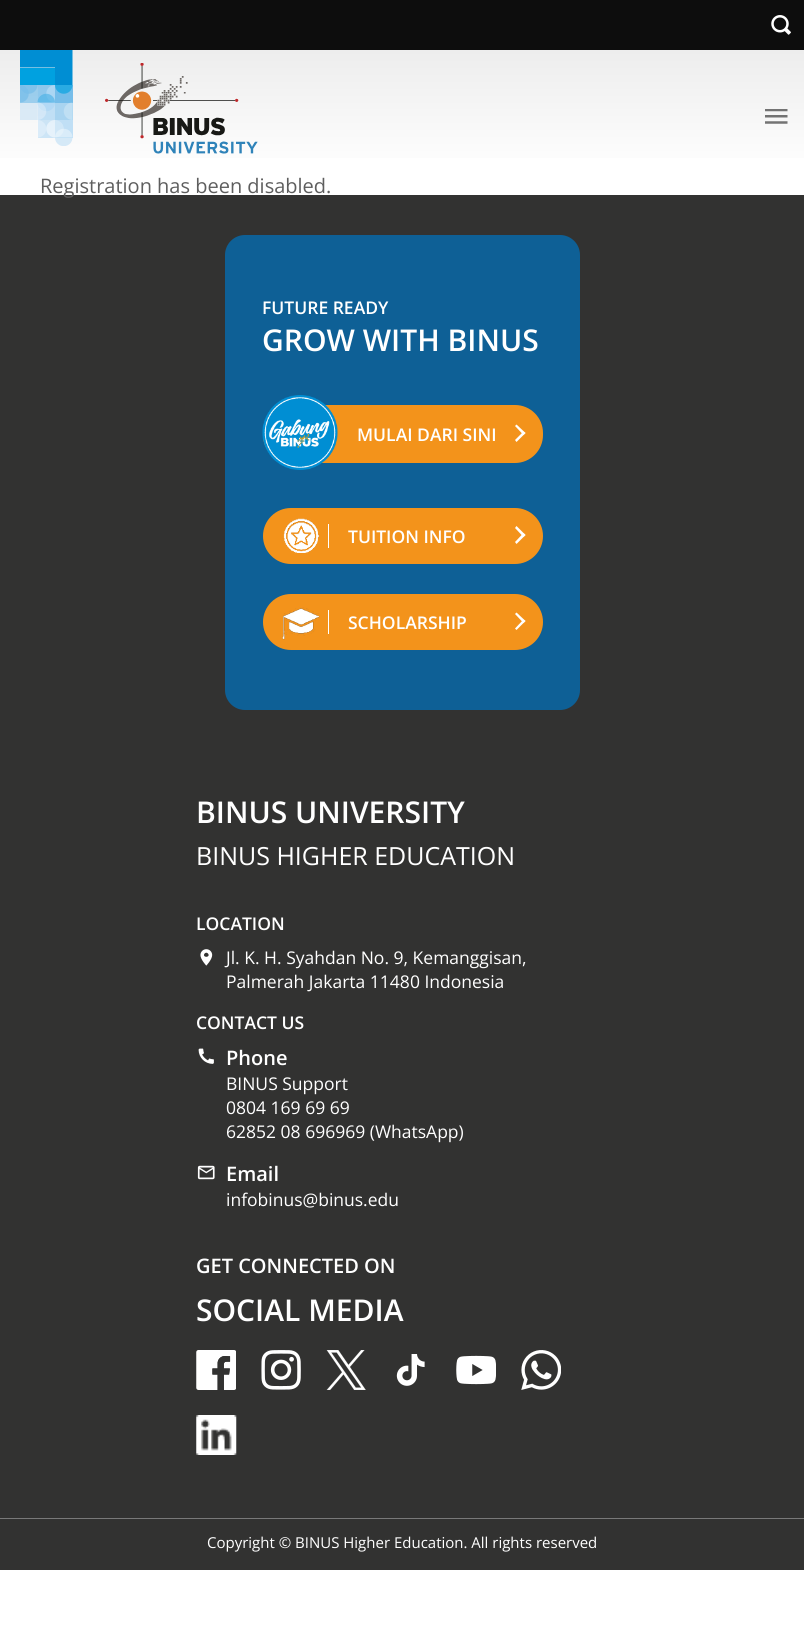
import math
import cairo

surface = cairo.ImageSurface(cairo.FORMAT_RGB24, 804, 1641)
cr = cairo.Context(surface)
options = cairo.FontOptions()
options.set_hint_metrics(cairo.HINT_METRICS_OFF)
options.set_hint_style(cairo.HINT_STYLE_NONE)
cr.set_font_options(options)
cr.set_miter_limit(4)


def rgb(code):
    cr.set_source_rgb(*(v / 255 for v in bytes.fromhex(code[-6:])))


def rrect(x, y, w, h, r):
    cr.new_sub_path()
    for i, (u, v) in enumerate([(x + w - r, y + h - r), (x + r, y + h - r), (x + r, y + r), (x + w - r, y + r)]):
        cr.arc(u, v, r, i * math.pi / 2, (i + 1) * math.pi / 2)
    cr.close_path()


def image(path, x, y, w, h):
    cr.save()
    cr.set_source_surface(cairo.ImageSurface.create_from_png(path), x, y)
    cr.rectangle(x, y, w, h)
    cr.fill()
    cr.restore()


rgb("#ffffff")
cr.paint()
rgb("#0d0d0d")
cr.rectangle(0, 0, 804, 50)
cr.fill()
image("img/1.png", 771, 15, 20, 20)
gradient = cairo.LinearGradient(403, 50, 403, 175)
gradient.add_color_stop_rgba(0, 0.929, 0.929, 0.929, 1)
gradient.add_color_stop_rgba(1, 1, 1, 1, 1)
cr.set_source(gradient)
cr.rectangle(0, 50, 804, 108)
cr.fill()
image("img/2.png", 20, 50, 53, 96)
image("img/3.png", 105, 63, 153, 91)
image("img/4.png", 765, 109, 23, 15)
rgb("#323231")
cr.rectangle(0, 195, 804, 1375)
cr.fill()
rgb("#0e6096")
rrect(225, 235, 355, 475, 20)
cr.fill()
rgb("#f3931b")
rrect(263, 405, 280, 58, 28)
cr.fill()
image("img/5.png", 262, 395, 76, 75)
rgb("#ffffff")
cr.new_path()
cr.move_to(515, 426)
cr.line_to(516.5, 424.5)
cr.line_to(525.5, 433)
cr.line_to(523.5, 435)
cr.close_path()
cr.fill()
cr.new_path()
cr.move_to(515, 440)
cr.line_to(523.5, 431.5)
cr.line_to(525.5, 433)
cr.line_to(516.5, 442)
cr.close_path()
cr.fill()
rgb("#f3931b")
rrect(263, 508, 280, 56, 28)
cr.fill()
image("img/6.png", 282, 518, 38, 36)
rgb("#ffffff")
cr.rectangle(328, 524, 1, 24)
cr.fill()
cr.new_path()
cr.move_to(515, 528)
cr.line_to(516.5, 526)
cr.line_to(525.5, 535)
cr.line_to(523.5, 537)
cr.close_path()
cr.fill()
cr.new_path()
cr.move_to(515, 542)
cr.line_to(523.5, 533)
cr.line_to(525.5, 535)
cr.line_to(516.5, 544)
cr.close_path()
cr.fill()
rgb("#f3931b")
rrect(263, 594, 280, 56, 28)
cr.fill()
image("img/7.png", 282, 607, 38, 33)
rgb("#ffffff")
cr.rectangle(328, 610, 1, 24)
cr.fill()
cr.new_path()
cr.move_to(515, 614)
cr.line_to(516.5, 612.5)
cr.line_to(525.5, 621)
cr.line_to(523.5, 623)
cr.close_path()
cr.fill()
cr.new_path()
cr.move_to(515, 628.5)
cr.line_to(523.5, 619.5)
cr.line_to(525.5, 621)
cr.line_to(516.5, 630)
cr.close_path()
cr.fill()
image("img/8.png", 200, 949, 13, 17)
image("img/9.png", 198, 1048, 16, 16)
image("img/10.png", 197, 1165, 18, 15)
image("img/11.png", 196, 1350, 40, 40)
image("img/12.png", 261, 1350, 40, 40)
image("img/13.png", 326, 1350, 40, 40)
image("img/14.png", 396, 1354, 29, 32)
image("img/15.png", 456, 1355, 40, 30)
image("img/16.png", 521, 1350, 40, 40)
image("img/17.png", 196, 1415, 41, 40)
rgb("#797979")
cr.rectangle(0, 1518, 804, 1)
cr.fill()
cr.select_font_face("Open Sans")
cr.set_font_size(20)
rgb("#5e5e5e")
cr.move_to(40, 193)
cr.show_text("Registration has been disabled.")
cr.select_font_face("Open Sans SemiBold")
cr.set_font_size(17.5)
rgb("#ffffff")
cr.move_to(262, 314)
cr.show_text("FUTURE READY")
cr.set_font_size(30)
cr.move_to(262, 351)
cr.show_text("GROW WITH BINUS")
cr.set_font_size(17.5)
for x, y, s in [
    (357, 441, "MULAI DARI SINI"),
    (348, 543, "TUITION INFO"),
    (348, 629, "SCHOLARSHIP"),
]:
    cr.move_to(x, y)
    cr.show_text(s)
cr.set_font_size(30)
cr.move_to(196, 823)
cr.show_text("BINUS UNIVERSITY")
cr.select_font_face("Open Sans")
cr.set_font_size(25)
cr.move_to(196, 865)
cr.show_text("BINUS HIGHER EDUCATION")
cr.select_font_face("Open Sans SemiBold")
cr.set_font_size(17.5)
cr.move_to(196, 930)
cr.show_text("LOCATION")
cr.select_font_face("Open Sans")
cr.move_to(226, 964)
cr.show_text("Jl. K. H. Syahdan No. 9, Kemanggisan,")
cr.move_to(226, 988)
cr.show_text("Palmerah Jakarta 11480 Indonesia")
cr.select_font_face("Open Sans SemiBold")
cr.move_to(196, 1029)
cr.show_text("CONTACT US")
cr.set_font_size(20)
cr.move_to(226, 1065)
cr.show_text("Phone")
cr.select_font_face("Open Sans")
cr.set_font_size(17.5)
for x, y, s in [
    (226, 1090, "BINUS Support"),
    (226, 1114, "0804 169 69 69"),
    (226, 1138, "62852 08 696969 (WhatsApp)"),
]:
    cr.move_to(x, y)
    cr.show_text(s)
cr.select_font_face("Open Sans SemiBold")
cr.set_font_size(20)
cr.move_to(226, 1181)
cr.show_text("Email")
cr.select_font_face("Open Sans")
cr.set_font_size(17.5)
cr.move_to(226, 1206)
cr.show_text("infobinus@binus.edu")
cr.select_font_face("Open Sans SemiBold")
cr.set_font_size(20)
cr.move_to(196, 1273)
cr.show_text("GET CONNECTED ON")
cr.set_font_size(30)
cr.move_to(196, 1321)
cr.show_text("SOCIAL MEDIA")
cr.select_font_face("Open Sans")
cr.set_font_size(15)
cr.move_to(207, 1548)
cr.show_text("Copyright © BINUS Higher Education. All rights reserved")
surface.write_to_png("page.png")
